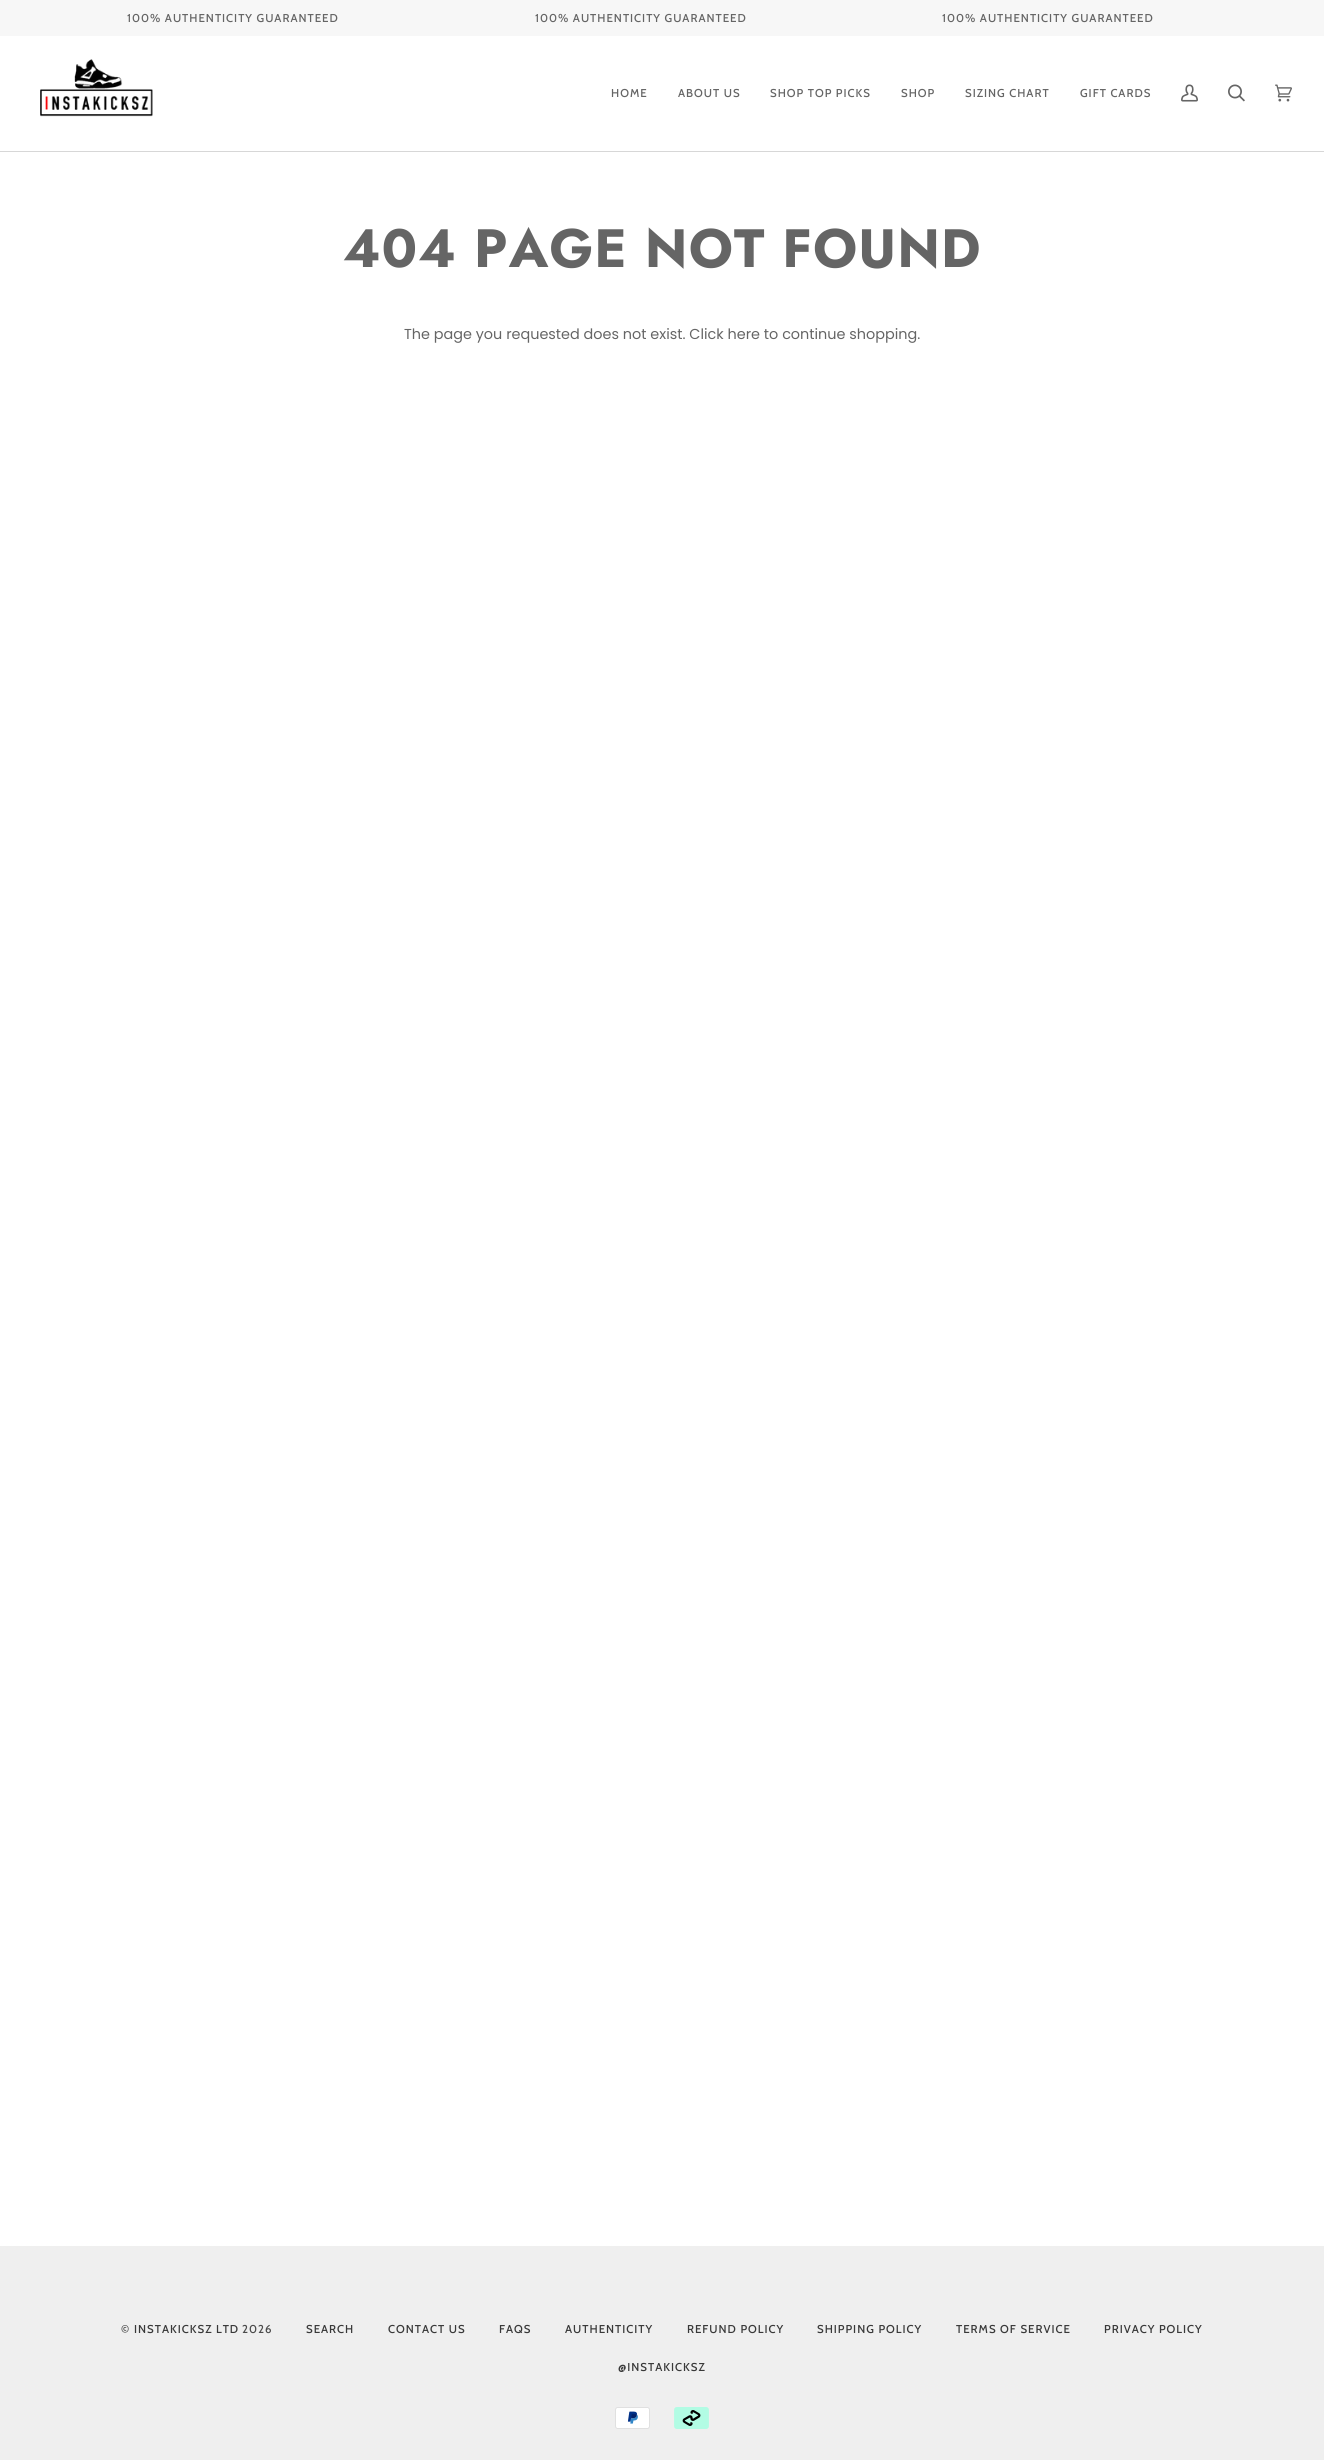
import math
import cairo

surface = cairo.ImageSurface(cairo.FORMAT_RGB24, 1324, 2461)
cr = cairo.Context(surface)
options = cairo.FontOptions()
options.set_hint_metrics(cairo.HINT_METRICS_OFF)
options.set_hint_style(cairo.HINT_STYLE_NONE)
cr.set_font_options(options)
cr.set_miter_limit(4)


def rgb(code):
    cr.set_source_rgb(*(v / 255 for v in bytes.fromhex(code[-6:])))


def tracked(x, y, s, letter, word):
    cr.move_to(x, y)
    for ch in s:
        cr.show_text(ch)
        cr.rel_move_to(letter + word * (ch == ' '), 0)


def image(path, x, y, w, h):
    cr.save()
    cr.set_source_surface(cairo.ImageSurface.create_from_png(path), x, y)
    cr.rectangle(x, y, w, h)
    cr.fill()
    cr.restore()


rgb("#ffffff")
cr.paint()
rgb("#f7f7f7")
cr.rectangle(0, 0, 1324, 36)
cr.fill()
rgb("#d7d7d7")
cr.rectangle(0, 151, 1324, 1)
cr.fill()
image("img/1.png", 40, 59, 113, 58)
image("img/2.png", 1181, 84, 17, 18)
image("img/3.png", 1228, 84, 17, 18)
image("img/4.png", 1275, 84, 17, 18)
rgb("#efefef")
cr.rectangle(0, 2246, 1324, 214)
cr.fill()
image("img/5.png", 615, 2407, 35, 22)
image("img/6.png", 674, 2407, 35, 22)
cr.select_font_face("Cabin Medium")
cr.set_font_size(11.4)
rgb("#656565")
for x, y, s in [
    (127, 22, "100% AUTHENTICITY GUARANTEED"),
    (535, 22, "100% AUTHENTICITY GUARANTEED"),
    (942, 22, "100% AUTHENTICITY GUARANTEED"),
    (611, 97, "HOME"),
    (678, 97, "ABOUT US"),
    (770, 97, "SHOP TOP PICKS"),
    (901, 97, "SHOP"),
    (965, 97, "SIZING CHART"),
    (1080, 97, "GIFT CARDS"),
]:
    tracked(x, y, s, 1, 0)
cr.select_font_face("Jost", cairo.FONT_SLANT_NORMAL, cairo.FONT_WEIGHT_BOLD)
cr.set_font_size(53.9)
tracked(343, 267, "404 PAGE NOT FOUND", 1, 0)
cr.select_font_face("Poppins")
cr.set_font_size(14.4)
cr.move_to(404, 339)
cr.show_text("The page you requested does not exist. Click here to continue shopping.")
cr.select_font_face("Cabin Medium")
cr.set_font_size(11.4)
rgb("#4b4b4b")
tracked(121, 2333, "©", 1, 0)
rgb("#393939")
tracked(134, 2333, "INSTAKICKSZ LTD", 1, 0)
rgb("#4b4b4b")
tracked(242, 2333, "2026", 1, 0)
rgb("#393939")
for x, y, s in [
    (306, 2333, "SEARCH"),
    (388, 2333, "CONTACT US"),
    (499, 2333, "FAQS"),
    (565, 2333, "AUTHENTICITY"),
    (687, 2333, "REFUND POLICY"),
    (817, 2333, "SHIPPING POLICY"),
    (956, 2333, "TERMS OF SERVICE"),
    (1104, 2333, "PRIVACY POLICY"),
    (618, 2371, "@INSTAKICKSZ"),
]:
    tracked(x, y, s, 1, 0)
surface.write_to_png("page.png")
